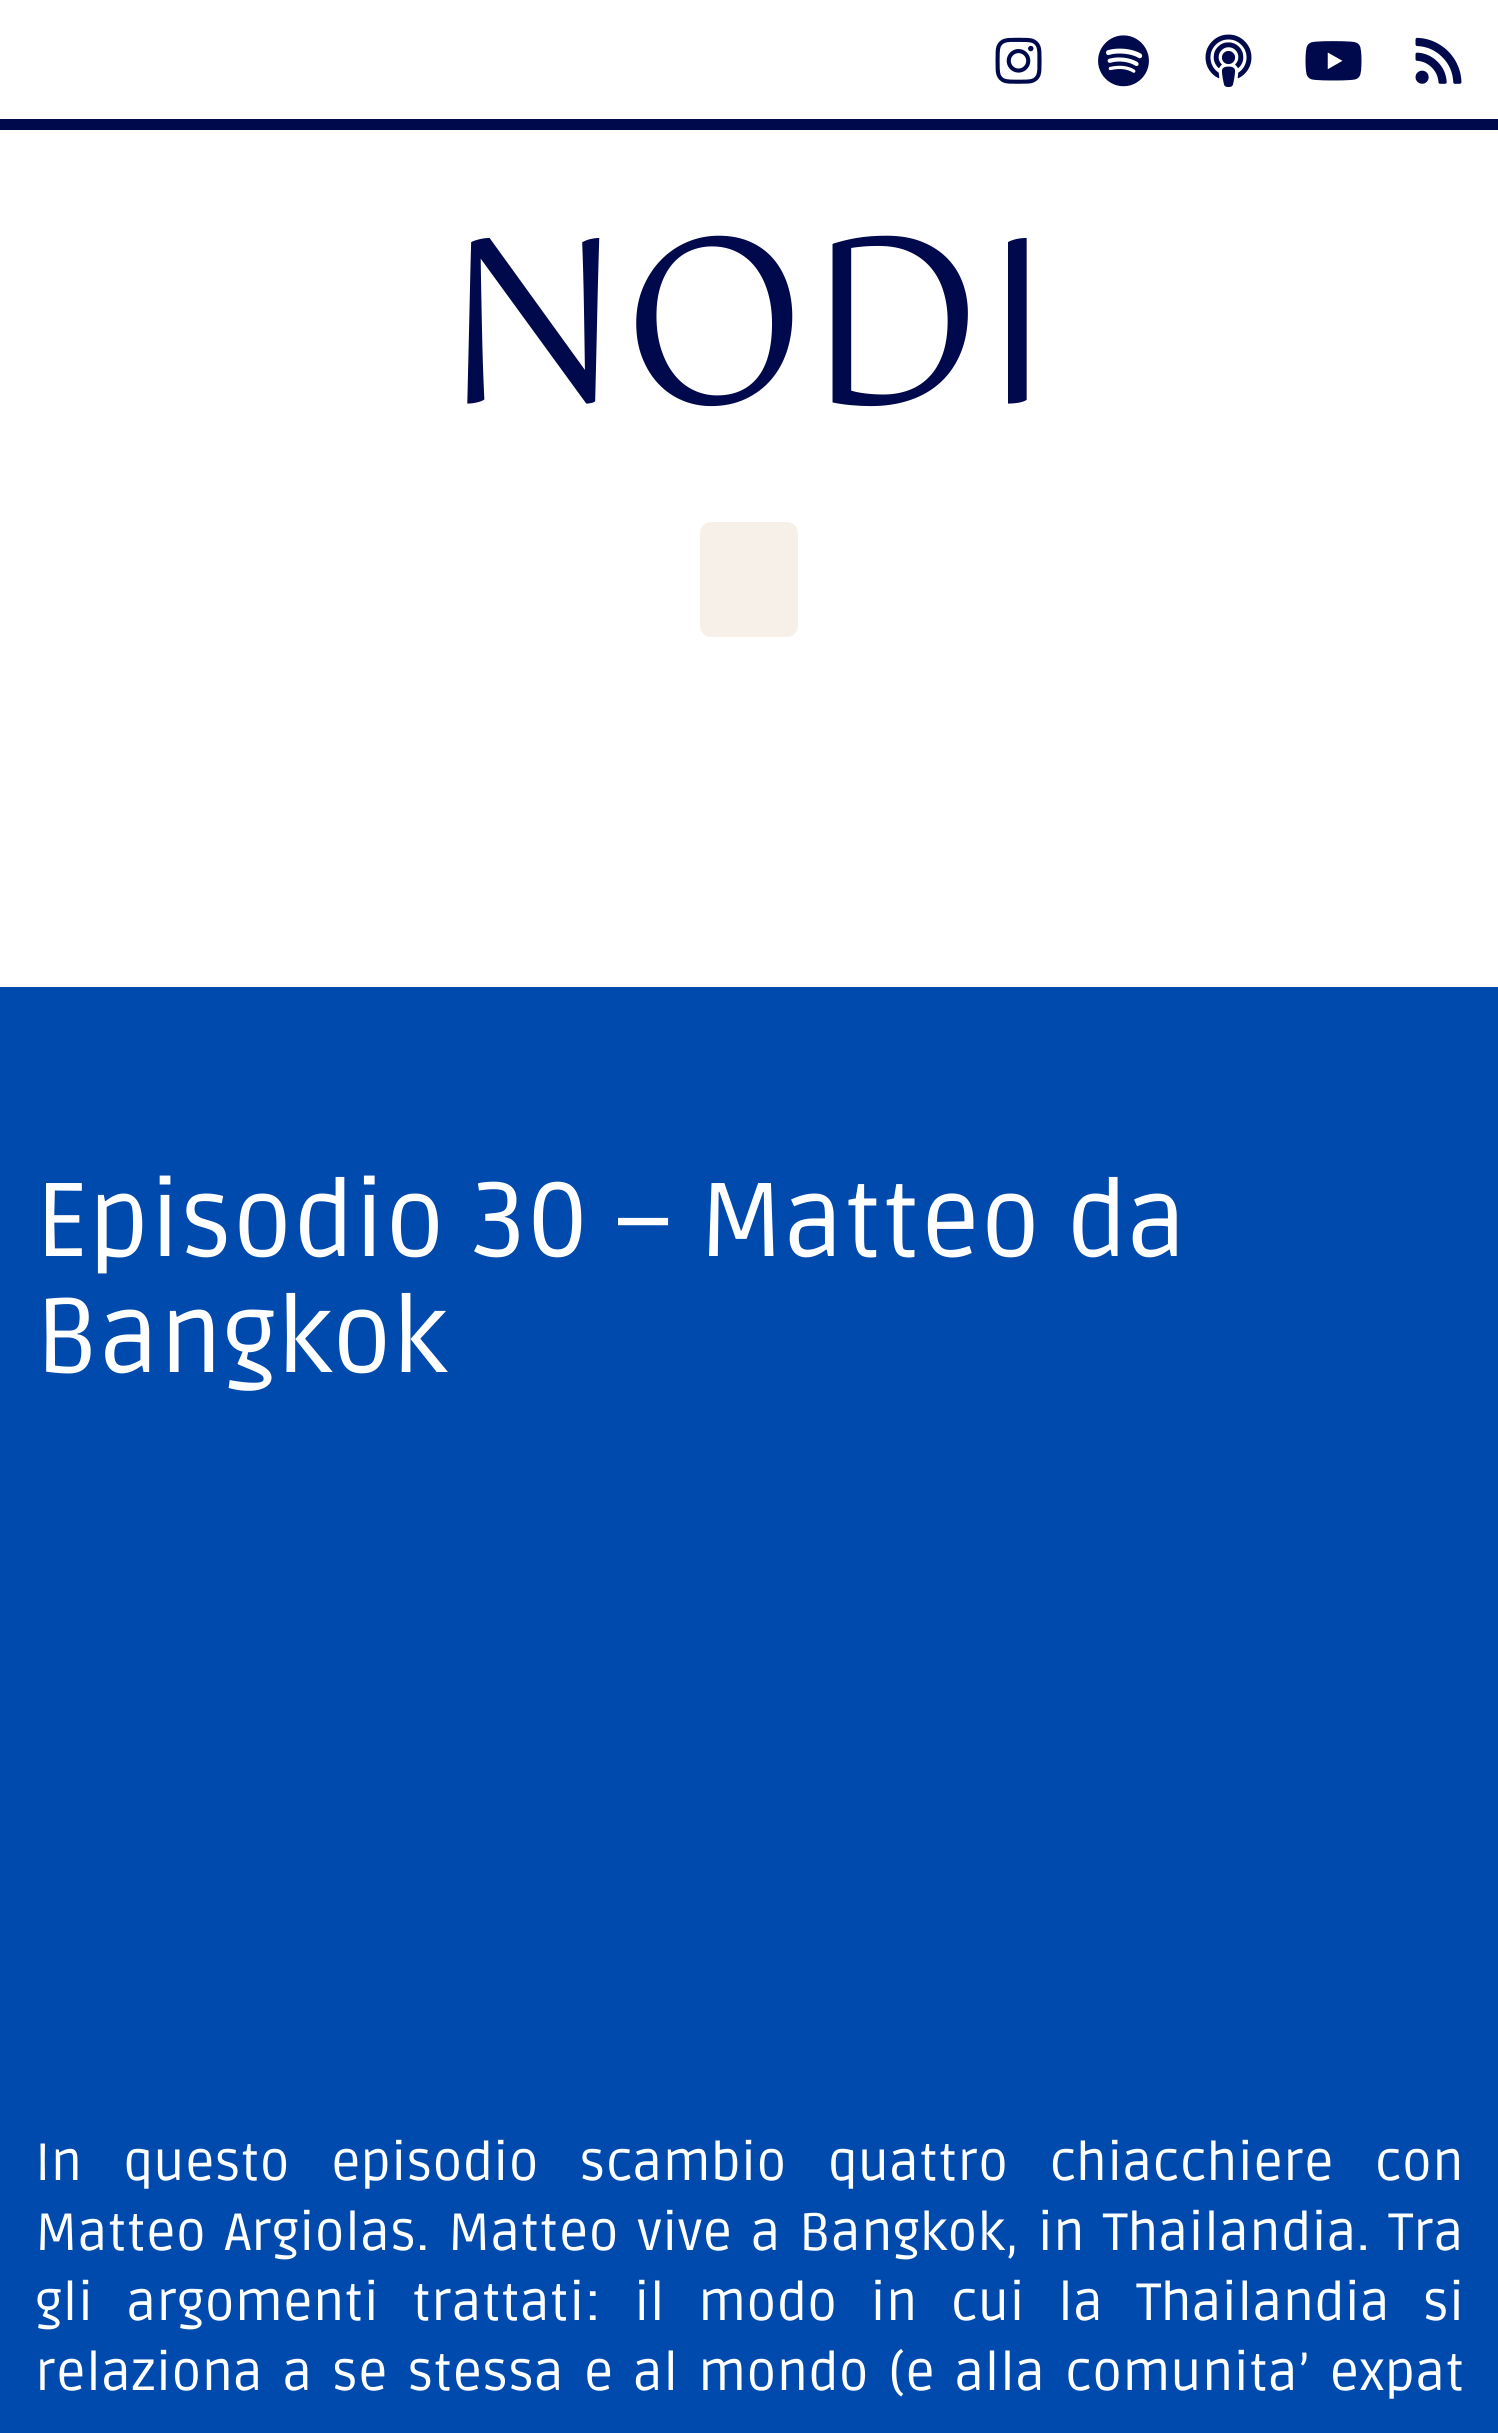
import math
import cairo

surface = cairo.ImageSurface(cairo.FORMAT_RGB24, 1498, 2433)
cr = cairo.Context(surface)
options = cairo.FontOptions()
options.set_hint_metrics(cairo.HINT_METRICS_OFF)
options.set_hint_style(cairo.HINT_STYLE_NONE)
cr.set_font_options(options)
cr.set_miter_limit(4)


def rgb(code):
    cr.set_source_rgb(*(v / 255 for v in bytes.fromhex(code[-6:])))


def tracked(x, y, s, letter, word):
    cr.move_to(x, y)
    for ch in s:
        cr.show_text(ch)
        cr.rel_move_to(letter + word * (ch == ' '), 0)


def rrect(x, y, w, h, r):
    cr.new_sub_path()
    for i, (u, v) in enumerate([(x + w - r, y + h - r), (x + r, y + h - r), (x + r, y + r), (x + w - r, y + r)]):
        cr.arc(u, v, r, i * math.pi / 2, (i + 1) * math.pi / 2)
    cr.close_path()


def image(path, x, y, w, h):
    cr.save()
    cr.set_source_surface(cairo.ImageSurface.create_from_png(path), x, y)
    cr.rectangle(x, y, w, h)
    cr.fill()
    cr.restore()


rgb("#ffffff")
cr.paint()
rgb("#00094b")
cr.rectangle(0, 119, 1498, 11)
cr.fill()
image("img/1.png", 995, 37, 47, 47)
image("img/2.png", 1098, 35, 51, 52)
image("img/3.png", 1205, 34, 47, 54)
image("img/4.png", 1305, 41, 57, 40)
image("img/5.png", 1415, 37, 47, 47)
rgb("#f7f0e8")
rrect(700, 522, 98, 115, 11)
cr.fill()
rgb("#004aad")
cr.rectangle(0, 987, 1498, 1446)
cr.fill()
cr.select_font_face("Gotu")
cr.set_font_size(227.5)
rgb("#00094b")
cr.move_to(445, 402)
cr.show_text("NODI")
cr.select_font_face("Ruda")
cr.set_font_size(105)
rgb("#ffffff")
cr.move_to(35, 1256)
cr.show_text("Episodio 30 – Matteo da")
cr.move_to(35, 1372)
cr.show_text("Bangkok")
cr.set_font_size(52.5)
tracked(35, 2180, "In questo episodio scambio quattro chiacchiere con", 0, 28.25)
tracked(35, 2250, "Matteo Argiolas. Matteo vive a Bangkok, in Thailandia. Tra", 0, 5.75)
tracked(35, 2320, "gli argomenti trattati: il modo in cui la Thailandia si", 0, 20.5)
tracked(35, 2390, "relaziona a se stessa e al mondo (e alla comunita’ expat", 0, 7)
surface.write_to_png("page.png")
